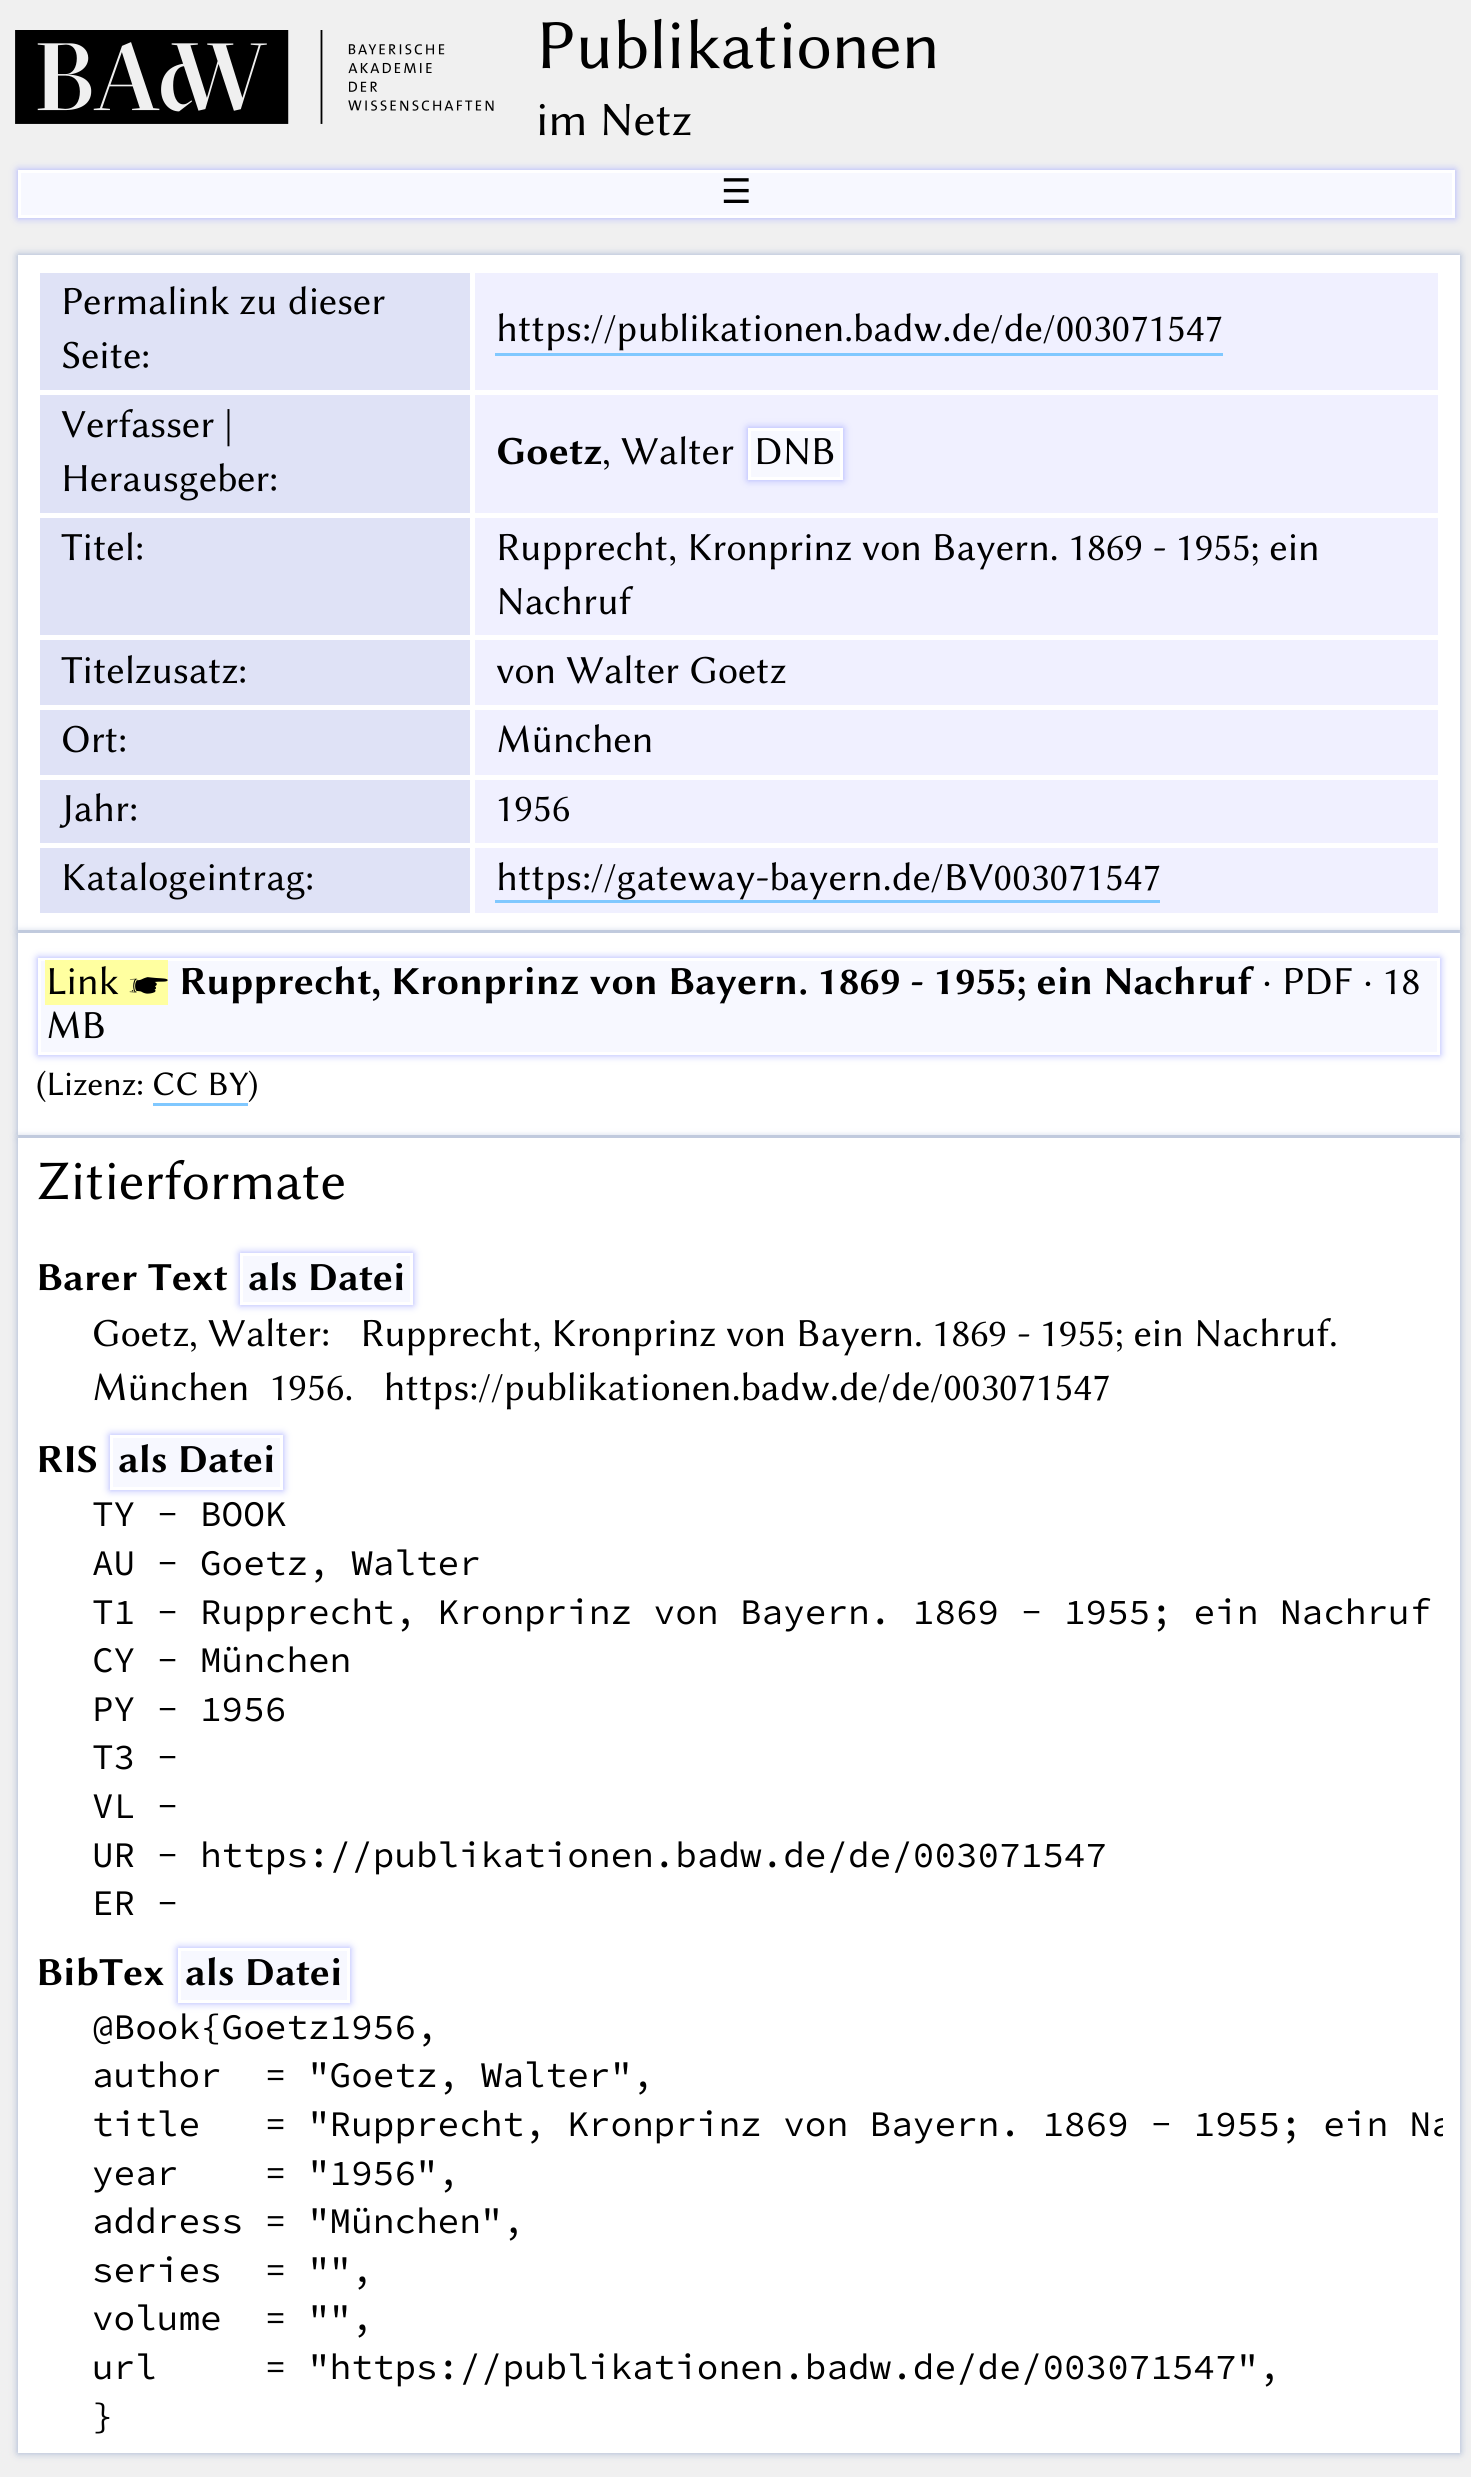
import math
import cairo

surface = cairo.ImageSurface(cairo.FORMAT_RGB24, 1471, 2477)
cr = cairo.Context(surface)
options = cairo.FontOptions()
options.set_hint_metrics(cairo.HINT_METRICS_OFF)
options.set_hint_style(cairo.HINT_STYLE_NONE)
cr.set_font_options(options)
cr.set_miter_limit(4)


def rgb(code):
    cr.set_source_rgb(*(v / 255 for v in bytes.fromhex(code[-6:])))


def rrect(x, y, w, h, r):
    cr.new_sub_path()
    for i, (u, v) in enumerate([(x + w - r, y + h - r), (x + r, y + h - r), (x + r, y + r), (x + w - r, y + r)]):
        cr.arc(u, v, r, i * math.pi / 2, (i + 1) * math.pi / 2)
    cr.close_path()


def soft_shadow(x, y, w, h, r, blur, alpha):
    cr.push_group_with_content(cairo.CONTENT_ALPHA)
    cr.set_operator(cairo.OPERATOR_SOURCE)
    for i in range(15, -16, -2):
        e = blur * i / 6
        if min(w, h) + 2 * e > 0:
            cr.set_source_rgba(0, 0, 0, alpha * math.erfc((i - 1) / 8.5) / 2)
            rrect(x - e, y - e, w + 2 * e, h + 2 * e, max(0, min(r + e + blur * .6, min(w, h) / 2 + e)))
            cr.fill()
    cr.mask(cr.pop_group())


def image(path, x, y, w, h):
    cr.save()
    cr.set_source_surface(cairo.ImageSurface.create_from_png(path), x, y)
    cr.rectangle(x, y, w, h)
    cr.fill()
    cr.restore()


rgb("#f0f0f0")
cr.paint()
image("img/1.png", 15, 30, 479, 94)
rgb("#aaafff")
soft_shadow(18, 170, 1437, 48, 0, 4, 1)
rgb("#f7f8ff")
cr.rectangle(19.5, 171.5, 1434, 45)
cr.fill_preserve()
rgb("#ffffff")
cr.set_line_width(3)
cr.stroke()
rgb("#a0b0d0")
soft_shadow(18, 255, 1442, 675, 0, 4, 1)
for x, y, w, h, color in [
    (18, 255, 1442, 675, "#ffffff"),
    (40, 273, 430, 117, "#dfe2f6"),
    (475, 273, 963, 117, "#f0f0ff"),
    (495, 353, 728, 3, "#80c8ff"),
    (40, 395, 430, 118, "#dfe2f6"),
    (475, 395, 963, 118, "#f0f0ff"),
]:
    rgb(color)
    cr.rectangle(x, y, w, h)
    cr.fill()
rgb("#aaafff")
soft_shadow(748, 428, 95, 52, 0, 4, 1)
rgb("#f7f8ff")
cr.rectangle(749.5, 429.5, 92, 49)
cr.fill_preserve()
rgb("#ffffff")
cr.stroke()
for x, y, w, h, color in [
    (40, 518, 430, 117, "#dfe2f6"),
    (475, 518, 963, 117, "#f0f0ff"),
    (40, 640, 430, 65, "#dfe2f6"),
    (475, 640, 963, 65, "#f0f0ff"),
    (40, 710, 430, 65, "#dfe2f6"),
    (475, 710, 963, 65, "#f0f0ff"),
    (40, 780, 430, 63, "#dfe2f6"),
    (475, 780, 963, 63, "#f0f0ff"),
    (40, 848, 430, 65, "#dfe2f6"),
    (475, 848, 963, 65, "#f0f0ff"),
    (495, 900, 665, 3, "#80c8ff"),
]:
    rgb(color)
    cr.rectangle(x, y, w, h)
    cr.fill()
rgb("#a0b0d0")
soft_shadow(18, 933, 1442, 202, 0, 4, 1)
rgb("#ffffff")
cr.rectangle(18, 933, 1442, 202)
cr.fill()
rgb("#aaafff")
soft_shadow(38, 958, 1402, 97, 0, 4, 1)
rgb("#f7f8ff")
cr.rectangle(39.5, 959.5, 1399, 94)
cr.fill_preserve()
rgb("#ffffff")
cr.stroke()
rgb("#ffffa0")
cr.rectangle(45, 960, 123, 45)
cr.fill()
rgb("#80c8ff")
cr.rectangle(153, 1103, 95, 3)
cr.fill()
rgb("#a0b0d0")
soft_shadow(18, 1138, 1442, 1315, 0, 4, 1)
rgb("#ffffff")
cr.rectangle(18, 1138, 1442, 1315)
cr.fill()
rgb("#aaafff")
soft_shadow(240, 1253, 173, 52, 0, 4, 1)
rgb("#f7f8ff")
cr.rectangle(241.5, 1254.5, 170, 49)
cr.fill_preserve()
rgb("#ffffff")
cr.stroke()
rgb("#aaafff")
soft_shadow(110, 1435, 173, 55, 0, 4, 1)
rgb("#f7f8ff")
cr.rectangle(111.5, 1436.5, 170, 52)
cr.fill_preserve()
rgb("#ffffff")
cr.stroke()
rgb("#aaafff")
soft_shadow(178, 1948, 172, 55, 0, 4, 1)
rgb("#f7f8ff")
cr.rectangle(179.5, 1949.5, 169, 52)
cr.fill_preserve()
rgb("#ffffff")
cr.stroke()
cr.select_font_face("Libertinus Sans")
cr.set_font_size(70.5)
rgb("#000000")
cr.move_to(536, 68)
cr.show_text("Publikationen")
cr.set_font_size(48)
cr.move_to(536, 135)
cr.show_text("im Netz")
cr.select_font_face("DejaVu Sans")
cr.set_font_size(34)
cr.move_to(721, 203)
cr.show_text("☰")
cr.select_font_face("Libertinus Sans")
cr.set_font_size(40)
for x, y, s in [
    (61, 314, "Permalink zu dieser"),
    (61, 368, "Seite"),
    (141, 368, ":"),
    (496, 341, "https://publikationen.badw.de/de/003071547"),
    (61, 437, "Verfasser |"),
    (61, 491, "Herausgeber"),
    (269, 491, ":"),
]:
    cr.move_to(x, y)
    cr.show_text(s)
cr.select_font_face("Libertinus Sans", cairo.FONT_SLANT_NORMAL, cairo.FONT_WEIGHT_BOLD)
cr.move_to(496, 464)
cr.show_text("Goetz")
cr.select_font_face("Libertinus Sans")
for x, y, s in [
    (602, 464, ", Walter"),
    (754, 464, "DNB"),
    (61, 560, "Titel"),
    (135, 560, ":"),
    (496, 560, "Rupprecht, Kronprinz von Bayern. 1869 - 1955; ein"),
    (496, 614, "Nachruf"),
    (61, 683, "Titelzusatz"),
    (238, 683, ":"),
    (496, 683, "von Walter Goetz"),
    (61, 752, "Ort"),
    (118, 752, ":"),
    (496, 752, "München"),
    (61, 821, "Jahr"),
    (129, 821, ":"),
    (496, 821, "1956"),
    (61, 890, "Katalogeintrag"),
    (305, 890, ":"),
    (496, 890, "https://gateway-bayern.de/BV003071547"),
    (46, 994, "Link ☛"),
]:
    cr.move_to(x, y)
    cr.show_text(s)
cr.select_font_face("Libertinus Sans", cairo.FONT_SLANT_NORMAL, cairo.FONT_WEIGHT_BOLD)
cr.move_to(179, 994)
cr.show_text("Rupprecht, Kronprinz von Bayern. 1869 - 1955; ein Nachruf")
cr.select_font_face("Libertinus Sans")
cr.move_to(1262, 994)
cr.show_text("· PDF · 18")
cr.move_to(46, 1038)
cr.show_text("MB")
cr.set_font_size(34.5)
for x, y, s in [
    (36, 1095, "(Lizenz"),
    (136, 1095, ": CC BY"),
    (248, 1095, ")"),
]:
    cr.move_to(x, y)
    cr.show_text(s)
cr.set_font_size(56)
cr.move_to(36, 1199)
cr.show_text("Zitierformate")
cr.select_font_face("Libertinus Sans", cairo.FONT_SLANT_NORMAL, cairo.FONT_WEIGHT_BOLD)
cr.set_font_size(40)
cr.move_to(36, 1290)
cr.show_text("Barer Text")
cr.move_to(248, 1290)
cr.show_text("als Datei")
cr.select_font_face("Libertinus Sans")
cr.move_to(92, 1346)
cr.show_text("Goetz, Walter: Rupprecht, Kronprinz von Bayern. 1869 - 1955; ein Nachruf.")
cr.move_to(92, 1400)
cr.show_text("München 1956. https://publikationen.badw.de/de/003071547")
cr.select_font_face("Libertinus Sans", cairo.FONT_SLANT_NORMAL, cairo.FONT_WEIGHT_BOLD)
cr.move_to(36, 1472)
cr.show_text("RIS")
cr.move_to(118, 1472)
cr.show_text("als Datei")
cr.select_font_face("Source Code Pro")
cr.set_font_size(36)
for x, y, s in [
    (92, 1526, "TY - BOOK"),
    (92, 1575, "AU - Goetz, Walter"),
    (92, 1624, "T1 - Rupprecht, Kronprinz von Bayern. 1869 - 1955; ein Nachruf"),
    (92, 1672, "CY - München"),
    (92, 1721, "PY - 1956"),
    (92, 1769, "T3 -"),
    (92, 1818, "VL -"),
    (92, 1867, "UR - https://publikationen.badw.de/de/003071547"),
    (92, 1915, "ER -"),
]:
    cr.move_to(x, y)
    cr.show_text(s)
cr.select_font_face("Libertinus Sans", cairo.FONT_SLANT_NORMAL, cairo.FONT_WEIGHT_BOLD)
cr.set_font_size(40)
cr.move_to(36, 1985)
cr.show_text("BibTex")
cr.move_to(185, 1985)
cr.show_text("als Datei")
cr.select_font_face("Source Code Pro")
cr.set_font_size(36)
cr.move_to(92, 2039)
cr.show_text("@Book{Goetz1956,")
cr.move_to(92, 2087)
cr.show_text("author  = \"Goetz, Walter\",")
cr.save()
cr.rectangle(93, 2005, 1350, 435)
cr.clip()
cr.move_to(92, 2136)
cr.show_text("title   = \"Rupprecht, Kronprinz von Bayern. 1869 - 1955; ein Na")
cr.restore()
for x, y, s in [
    (92, 2185, "year    = \"1956\","),
    (92, 2233, "address = \"München\","),
    (92, 2282, "series  = \"\","),
    (92, 2330, "volume  = \"\","),
    (92, 2379, "url     = \"https://publikationen.badw.de/de/003071547\","),
    (92, 2428, "}"),
]:
    cr.move_to(x, y)
    cr.show_text(s)
surface.write_to_png("page.png")
